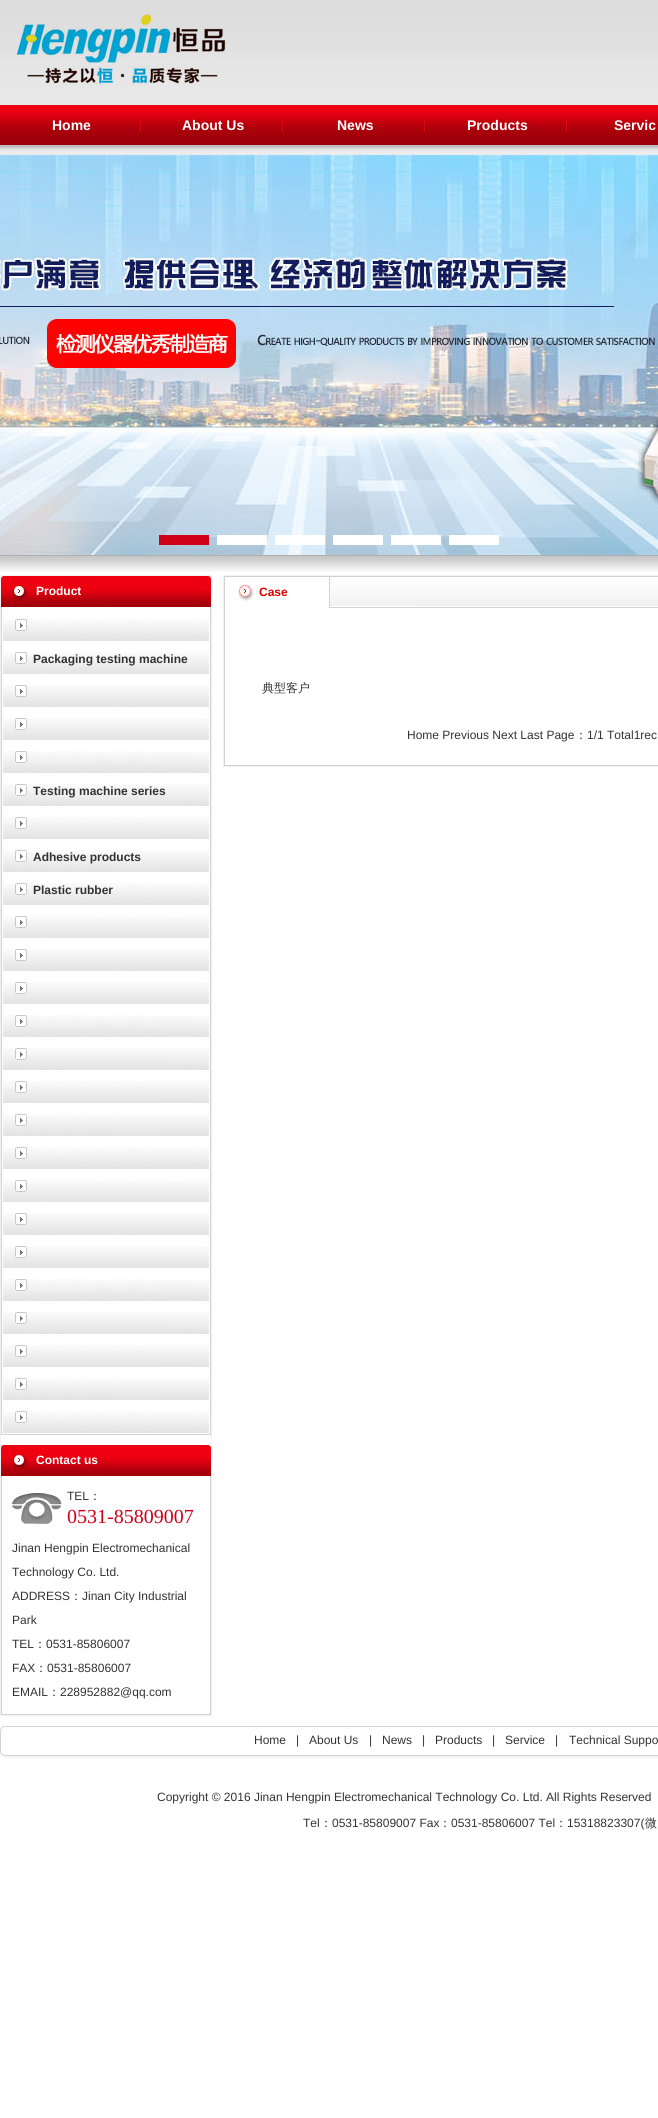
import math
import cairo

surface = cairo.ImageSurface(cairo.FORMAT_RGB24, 658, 2118)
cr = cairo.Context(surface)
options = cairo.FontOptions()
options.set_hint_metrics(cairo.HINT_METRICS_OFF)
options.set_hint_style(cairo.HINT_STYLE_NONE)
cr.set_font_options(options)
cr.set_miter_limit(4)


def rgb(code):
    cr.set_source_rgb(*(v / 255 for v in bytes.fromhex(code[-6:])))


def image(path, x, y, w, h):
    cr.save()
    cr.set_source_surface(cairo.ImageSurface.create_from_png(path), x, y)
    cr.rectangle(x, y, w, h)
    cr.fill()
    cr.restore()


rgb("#ffffff")
cr.paint()
image("img/1.png", 0, 0, 658, 155)
image("img/2.png", 16, 14, 210, 71)
image("img/3.png", 140, 120, 2, 11)
image("img/3.png", 282, 120, 2, 11)
image("img/3.png", 424, 120, 2, 11)
image("img/3.png", 566, 120, 2, 11)
image("img/4.png", 0, 555, 658, 17)
image("img/5.png", 0, 155, 658, 400)
for x, y, w, h, color in [
    (159, 535, 50, 10, "#d00018"),
    (217, 535, 50, 10, "#ffffff"),
    (275, 535, 50, 10, "#ffffff"),
    (333, 535, 50, 10, "#ffffff"),
    (391, 535, 50, 10, "#ffffff"),
    (449, 535, 50, 10, "#ffffff"),
]:
    rgb(color)
    cr.rectangle(x, y, w, h)
    cr.fill()
cr.rectangle(0.5, 575.5, 211, 1140)
rgb("#f1f1f1")
cr.set_line_width(1)
cr.stroke()
image("img/6.png", 1, 576, 210, 31)
for x, y, w, h, color in [
    (210, 607, 1, 828, "#d2d2d2"),
    (1, 1434, 210, 1, "#d2d2d2"),
    (1, 607, 1, 828, "#d2d2d2"),
]:
    rgb(color)
    cr.rectangle(x, y, w, h)
    cr.fill()
image("img/7.png", 3, 619, 206, 22)
image("img/7.png", 3, 652, 206, 22)
image("img/7.png", 3, 685, 206, 22)
image("img/7.png", 3, 718, 206, 22)
image("img/7.png", 3, 751, 206, 22)
image("img/7.png", 3, 784, 206, 22)
image("img/7.png", 3, 817, 206, 22)
image("img/7.png", 3, 850, 206, 22)
image("img/7.png", 3, 883, 206, 22)
image("img/7.png", 3, 916, 206, 22)
image("img/7.png", 3, 949, 206, 22)
image("img/7.png", 3, 982, 206, 22)
image("img/7.png", 3, 1015, 206, 22)
image("img/7.png", 3, 1048, 206, 22)
image("img/7.png", 3, 1081, 206, 22)
image("img/7.png", 3, 1114, 206, 22)
image("img/7.png", 3, 1147, 206, 22)
image("img/7.png", 3, 1180, 206, 22)
image("img/7.png", 3, 1213, 206, 22)
image("img/7.png", 3, 1246, 206, 22)
image("img/7.png", 3, 1279, 206, 22)
image("img/7.png", 3, 1312, 206, 22)
image("img/7.png", 3, 1345, 206, 22)
image("img/7.png", 3, 1378, 206, 22)
image("img/7.png", 3, 1411, 206, 22)
image("img/6.png", 1, 1445, 210, 31)
for x, y, w, h, color in [
    (210, 1476, 1, 239, "#d2d2d2"),
    (1, 1714, 210, 1, "#d2d2d2"),
    (1, 1476, 1, 239, "#d2d2d2"),
]:
    rgb(color)
    cr.rectangle(x, y, w, h)
    cr.fill()
image("img/8.png", 12, 1493, 50, 31)
cr.rectangle(223.5, 575.5, 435, 191)
rgb("#f1f1f1")
cr.stroke()
image("img/9.png", 224, 576, 434, 32)
rgb("#d2d2d2")
cr.rectangle(224, 765, 434, 1)
cr.fill()
cr.rectangle(224, 608, 1, 158)
cr.fill()
image("img/10.png", 0, 1726, 658, 33)
cr.select_font_face("Liberation Sans", cairo.FONT_SLANT_NORMAL, cairo.FONT_WEIGHT_BOLD)
cr.set_font_size(14)
rgb("#ffffff")
for x, y, s in [
    (52, 130, "Home"),
    (182, 130, "About Us"),
    (337, 130, "News"),
    (467, 130, "Products"),
    (614, 130, "Servic"),
]:
    cr.move_to(x, y)
    cr.show_text(s)
cr.set_font_size(12)
cr.move_to(36, 595)
cr.show_text("Product")
rgb("#333333")
for x, y, s in [
    (33, 663, "Packaging testing machine"),
    (33, 795, "Testing machine series"),
    (33, 861, "Adhesive products"),
    (33, 894, "Plastic rubber"),
]:
    cr.move_to(x, y)
    cr.show_text(s)
rgb("#ffffff")
cr.move_to(36, 1464)
cr.show_text("Contact us")
cr.select_font_face("Liberation Sans")
rgb("#333333")
cr.move_to(67, 1500)
cr.show_text("TEL")
cr.select_font_face("WenQuanYi Zen Hei Medium")
cr.move_to(89, 1500)
cr.show_text("：")
cr.select_font_face("Liberation Serif")
cr.set_font_size(20)
rgb("#d0001b")
cr.move_to(67, 1523)
cr.show_text("0531-85809007")
cr.select_font_face("Liberation Sans")
cr.set_font_size(12)
rgb("#333333")
for x, y, s in [
    (12, 1552, "Jinan Hengpin Electromechanical"),
    (12, 1576, "Technology Co. Ltd."),
    (12, 1600, "ADDRESS"),
]:
    cr.move_to(x, y)
    cr.show_text(s)
cr.select_font_face("WenQuanYi Zen Hei Medium")
cr.move_to(70, 1600)
cr.show_text("：")
cr.select_font_face("Liberation Sans")
for x, y, s in [
    (82, 1600, "Jinan City Industrial"),
    (12, 1624, "Park"),
    (12, 1648, "TEL"),
]:
    cr.move_to(x, y)
    cr.show_text(s)
cr.select_font_face("WenQuanYi Zen Hei Medium")
cr.move_to(34, 1648)
cr.show_text("：")
cr.select_font_face("Liberation Sans")
cr.move_to(46, 1648)
cr.show_text("0531-85806007")
cr.move_to(12, 1672)
cr.show_text("FAX")
cr.select_font_face("WenQuanYi Zen Hei Medium")
cr.move_to(35, 1672)
cr.show_text("：")
cr.select_font_face("Liberation Sans")
cr.move_to(47, 1672)
cr.show_text("0531-85806007")
cr.move_to(12, 1696)
cr.show_text("EMAIL")
cr.select_font_face("WenQuanYi Zen Hei Medium")
cr.move_to(48, 1696)
cr.show_text("：")
cr.select_font_face("Liberation Sans")
cr.move_to(60, 1696)
cr.show_text("228952882@qq.com")
cr.select_font_face("Liberation Sans", cairo.FONT_SLANT_NORMAL, cairo.FONT_WEIGHT_BOLD)
rgb("#dc0000")
cr.move_to(259, 596)
cr.show_text("Case")
cr.select_font_face("WenQuanYi Zen Hei Medium")
rgb("#333333")
cr.move_to(262, 692)
cr.show_text("典型客户")
cr.select_font_face("Liberation Sans")
cr.move_to(407, 739)
cr.show_text("Home Previous Next Last Page")
cr.select_font_face("WenQuanYi Zen Hei Medium")
cr.move_to(575, 739)
cr.show_text("：")
cr.select_font_face("Liberation Sans")
for x, y, s in [
    (587, 739, "1/1 Total1rec"),
    (254, 1744, "Home"),
    (296, 1744, "|"),
    (309, 1744, "About Us"),
    (369, 1744, "|"),
    (382, 1744, "News"),
    (422, 1744, "|"),
    (435, 1744, "Products"),
    (492, 1744, "|"),
    (505, 1744, "Service"),
    (555, 1744, "|"),
    (569, 1744, "Technical Suppo"),
    (157, 1801, "Copyright © 2016 Jinan Hengpin Electromechanical Technology Co. Ltd. All Rights Reserved"),
    (303, 1827, "Tel"),
]:
    cr.move_to(x, y)
    cr.show_text(s)
cr.select_font_face("WenQuanYi Zen Hei Medium")
cr.move_to(320, 1827)
cr.show_text("：")
cr.select_font_face("Liberation Sans")
cr.move_to(332, 1827)
cr.show_text("0531-85809007 Fax")
cr.select_font_face("WenQuanYi Zen Hei Medium")
cr.move_to(439, 1827)
cr.show_text("：")
cr.select_font_face("Liberation Sans")
cr.move_to(451, 1827)
cr.show_text("0531-85806007 Tel")
cr.select_font_face("WenQuanYi Zen Hei Medium")
cr.move_to(555, 1827)
cr.show_text("：")
cr.select_font_face("Liberation Sans")
cr.move_to(567, 1827)
cr.show_text("15318823307(")
cr.select_font_face("WenQuanYi Zen Hei Medium")
cr.move_to(645, 1827)
cr.show_text("微")
surface.write_to_png("page.png")
